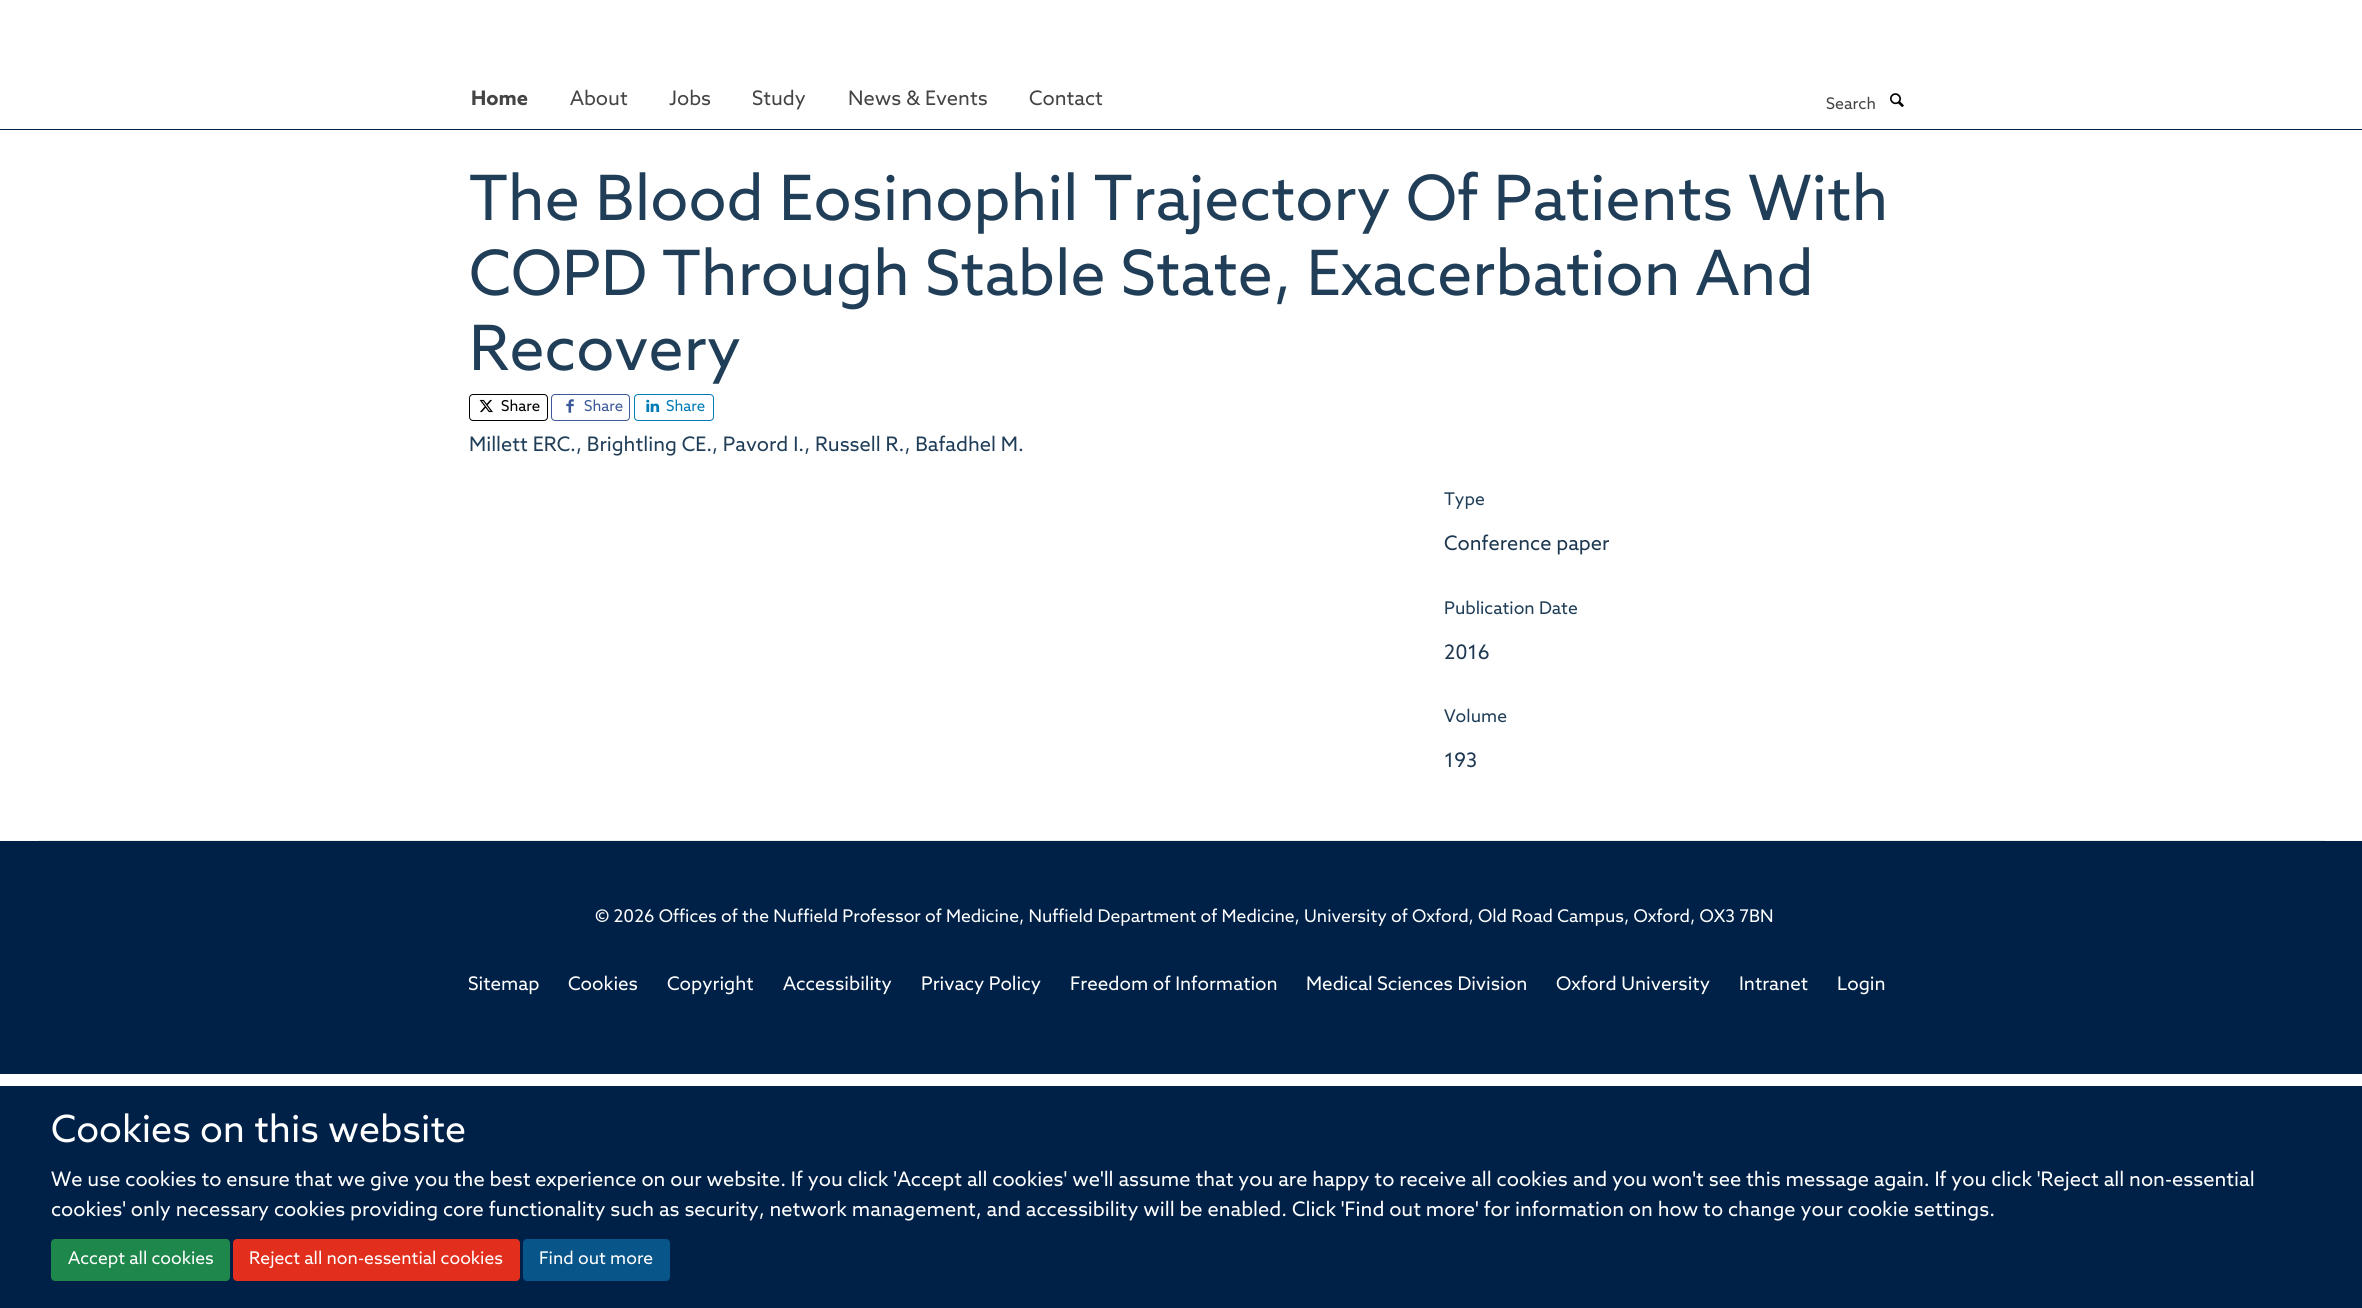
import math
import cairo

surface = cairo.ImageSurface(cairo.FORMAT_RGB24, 2362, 1308)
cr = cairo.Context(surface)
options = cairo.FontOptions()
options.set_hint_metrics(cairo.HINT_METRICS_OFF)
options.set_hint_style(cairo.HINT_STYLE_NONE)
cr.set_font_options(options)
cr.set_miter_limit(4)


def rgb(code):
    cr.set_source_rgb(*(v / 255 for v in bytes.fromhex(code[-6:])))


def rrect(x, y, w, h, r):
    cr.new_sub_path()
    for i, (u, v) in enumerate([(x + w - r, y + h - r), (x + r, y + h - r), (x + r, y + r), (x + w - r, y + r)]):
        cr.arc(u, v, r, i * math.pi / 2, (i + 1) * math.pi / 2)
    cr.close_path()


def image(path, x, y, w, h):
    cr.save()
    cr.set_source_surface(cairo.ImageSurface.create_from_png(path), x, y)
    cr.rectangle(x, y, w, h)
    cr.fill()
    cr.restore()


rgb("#ffffff")
cr.paint()
rgb("#002147")
cr.rectangle(0, 129, 2362, 1)
cr.fill()
image("img/1.png", 1890, 93, 14, 14)
rrect(469.5, 394.5, 78, 26, 3.5)
rgb("#000000")
cr.set_line_width(1)
cr.stroke()
image("img/2.png", 479, 399, 14, 14)
rrect(551.5, 394.5, 78, 26, 3.5)
rgb("#3b5998")
cr.stroke()
image("img/3.png", 566, 399, 8, 14)
rrect(634.5, 394.5, 79, 26, 3.5)
rgb("#007bb6")
cr.stroke()
image("img/4.png", 646, 399, 14, 13)
for x, y, w, h, color in [
    (38, 840, 2287, 1, "#eeeeee"),
    (0, 841, 2362, 233, "#002147"),
    (0, 1086, 2362, 222, "#002147"),
]:
    rgb(color)
    cr.rectangle(x, y, w, h)
    cr.fill()
rgb("#1e874b")
rrect(51.5, 1239.5, 178, 41, 3.5)
cr.fill_preserve()
cr.stroke()
rgb("#e22e1c")
rrect(233.5, 1239.5, 286, 41, 3.5)
cr.fill_preserve()
cr.stroke()
rgb("#085589")
rrect(523.5, 1239.5, 146, 41, 3.5)
cr.fill_preserve()
cr.stroke()
cr.select_font_face("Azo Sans", cairo.FONT_SLANT_NORMAL, cairo.FONT_WEIGHT_BOLD)
cr.set_font_size(20)
rgb("#444444")
cr.move_to(471, 105)
cr.show_text("Home")
cr.select_font_face("Azo Sans")
for x, y, s in [
    (570, 105, "About"),
    (669, 105, "Jobs"),
    (752, 105, "Study"),
    (848, 105, "News & Events"),
    (1029, 105, "Contact"),
]:
    cr.move_to(x, y)
    cr.show_text(s)
cr.set_font_size(16)
cr.move_to(1826, 109)
cr.show_text("Search")
cr.set_font_size(62.5)
rgb("#203e58")
for x, y, s in [
    (469, 220, "The Blood Eosinophil Trajectory Of Patients With"),
    (469, 295, "COPD Through Stable State, Exacerbation And"),
    (469, 370, "Recovery"),
]:
    cr.move_to(x, y)
    cr.show_text(s)
cr.set_font_size(15)
rgb("#000000")
cr.move_to(501, 411)
cr.show_text("Share")
rgb("#3b5998")
cr.move_to(584, 411)
cr.show_text("Share")
rgb("#007bb6")
cr.move_to(666, 411)
cr.show_text("Share")
cr.set_font_size(20)
rgb("#203e58")
cr.move_to(469, 451)
cr.show_text("Millett ERC., Brightling CE., Pavord I., Russell R., Bafadhel M.")
cr.set_font_size(17.5)
cr.move_to(1444, 505)
cr.show_text("Type")
cr.set_font_size(20)
rgb("#1d3850")
cr.move_to(1444, 550)
cr.show_text("Conference paper")
cr.set_font_size(17.5)
rgb("#203e58")
cr.move_to(1444, 614)
cr.show_text("Publication Date")
cr.set_font_size(20)
rgb("#1d3850")
cr.move_to(1444, 659)
cr.show_text("2016")
cr.set_font_size(17.5)
rgb("#203e58")
cr.move_to(1444, 722)
cr.show_text("Volume")
cr.set_font_size(20)
rgb("#1d3850")
cr.move_to(1444, 767)
cr.show_text("193")
cr.set_font_size(17.5)
rgb("#ffffff")
cr.move_to(595, 922)
cr.show_text("© 2026 Offices of the Nuffield Professor of Medicine, Nuffield Department of Medicine, University of Oxford, Old Road Campus, Oxford, OX3 7BN")
cr.set_font_size(18.75)
for x, y, s in [
    (468, 990, "Sitemap"),
    (568, 990, "Cookies"),
    (667, 990, "Copyright"),
    (783, 990, "Accessibility"),
    (921, 990, "Privacy Policy"),
    (1070, 990, "Freedom of Information"),
    (1306, 990, "Medical Sciences Division"),
    (1556, 990, "Oxford University"),
    (1739, 990, "Intranet"),
    (1837, 990, "Login"),
]:
    cr.move_to(x, y)
    cr.show_text(s)
cr.set_font_size(37.5)
cr.move_to(51, 1142)
cr.show_text("Cookies on this website")
cr.set_font_size(20)
cr.move_to(51, 1186)
cr.show_text("We use cookies to ensure that we give you the best experience on our website. If you click 'Accept all cookies' we'll assume that you are happy to receive all cookies and you won't see this message again. If you click 'Reject all non-essential")
cr.move_to(51, 1216)
cr.show_text("cookies' only necessary cookies providing core functionality such as security, network management, and accessibility will be enabled. Click 'Find out more' for information on how to change your cookie settings.")
cr.set_font_size(17.5)
for x, y, s in [
    (68, 1264, "Accept all cookies"),
    (249, 1264, "Reject all non-essential cookies"),
    (539, 1264, "Find out more"),
]:
    cr.move_to(x, y)
    cr.show_text(s)
surface.write_to_png("page.png")
